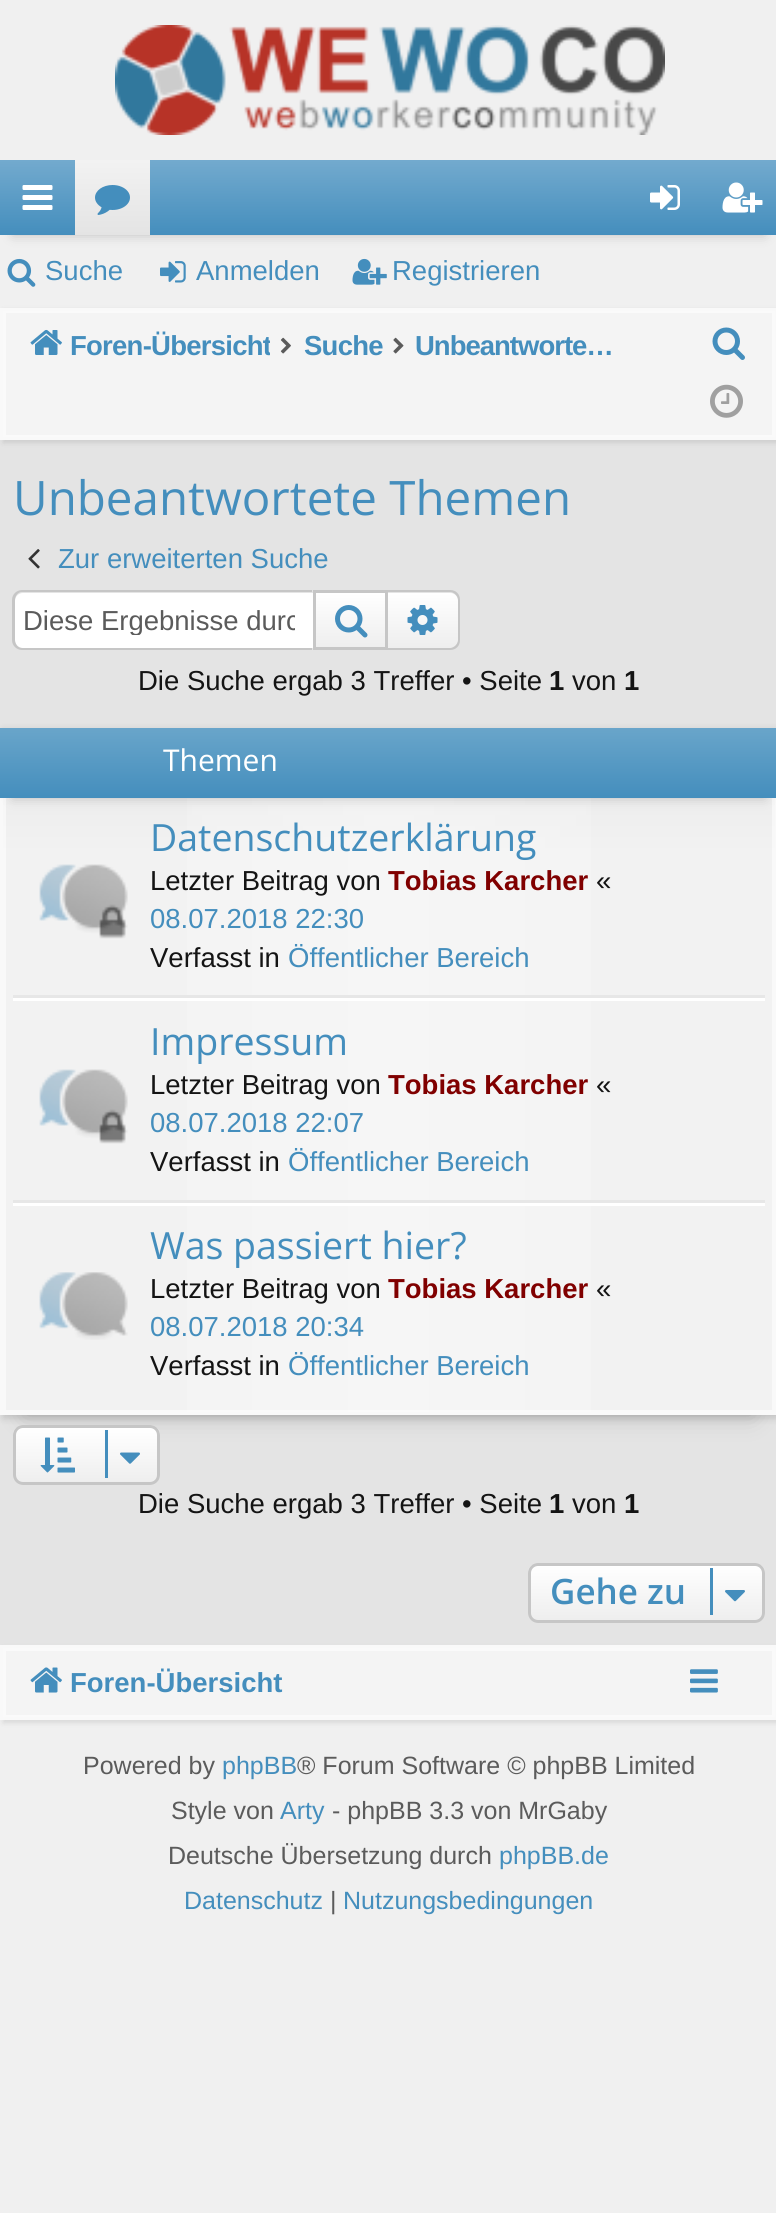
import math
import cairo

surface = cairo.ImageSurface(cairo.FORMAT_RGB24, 776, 2213)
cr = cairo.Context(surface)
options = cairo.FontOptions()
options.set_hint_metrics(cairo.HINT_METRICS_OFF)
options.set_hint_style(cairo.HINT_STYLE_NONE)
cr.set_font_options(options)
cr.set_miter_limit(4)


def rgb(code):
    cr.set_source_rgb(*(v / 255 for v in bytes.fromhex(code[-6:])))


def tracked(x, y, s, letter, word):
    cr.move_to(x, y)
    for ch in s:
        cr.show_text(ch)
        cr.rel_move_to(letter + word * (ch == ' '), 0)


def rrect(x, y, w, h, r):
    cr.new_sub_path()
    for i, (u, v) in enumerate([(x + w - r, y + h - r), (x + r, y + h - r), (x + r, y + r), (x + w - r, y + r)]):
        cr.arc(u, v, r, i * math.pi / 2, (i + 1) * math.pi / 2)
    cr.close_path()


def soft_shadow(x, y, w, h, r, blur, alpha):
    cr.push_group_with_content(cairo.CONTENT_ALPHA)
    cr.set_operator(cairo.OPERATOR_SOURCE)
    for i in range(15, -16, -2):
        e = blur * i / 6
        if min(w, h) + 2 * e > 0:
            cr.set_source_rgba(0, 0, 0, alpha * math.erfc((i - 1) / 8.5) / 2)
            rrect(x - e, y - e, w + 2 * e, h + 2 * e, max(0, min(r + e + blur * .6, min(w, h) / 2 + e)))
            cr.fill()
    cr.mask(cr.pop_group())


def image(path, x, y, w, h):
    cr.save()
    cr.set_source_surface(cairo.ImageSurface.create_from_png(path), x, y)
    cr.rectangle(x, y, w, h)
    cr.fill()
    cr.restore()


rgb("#f0f0f0")
cr.paint()
image("img/1.png", 115, 25, 550, 110)
rgb("#000000")
soft_shadow(13, 185, 752, 50, 0, 6, 0.2)
gradient = cairo.LinearGradient(389, 160, 389, 235)
gradient.add_color_stop_rgba(0, 0.451, 0.667, 0.808, 1)
gradient.add_color_stop_rgba(1, 0.267, 0.557, 0.741, 1)
cr.set_source(gradient)
cr.rectangle(0, 160, 776, 75)
cr.fill()
image("img/2.png", 22, 185, 31, 25)
gradient = cairo.LinearGradient(113, 160, 113, 235)
gradient.add_color_stop_rgba(0, 0.949, 0.949, 0.949, 1)
gradient.add_color_stop_rgba(1, 0.894, 0.894, 0.894, 1)
cr.set_source(gradient)
cr.rectangle(75, 160, 75, 75)
cr.fill()
image("img/3.png", 95, 185, 35, 30)
image("img/4.png", 650, 185, 30, 25)
image("img/5.png", 722, 182, 41, 31)
image("img/6.png", 7, 258, 29, 29)
image("img/7.png", 160, 261, 26, 22)
image("img/8.png", 352, 258, 35, 27)
rgb("#e4e4e4")
cr.rectangle(0, 440, 776, 1205)
cr.fill()
rgb("#000000")
soft_shadow(3, 310, 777, 133, 0, 2.5, 0.1)
rgb("#f4f4f4")
cr.rectangle(4.5, 311.5, 769, 125)
cr.fill_preserve()
rgb("#fafafa")
cr.set_line_width(3)
cr.stroke()
cr.rectangle(1.5, 309.5, 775, 129)
rgb("#f9f9f9")
cr.stroke()
image("img/9.png", 30, 329, 32, 26)
image("img/10.png", 280, 337, 11, 17)
image("img/11.png", 393, 337, 11, 17)
image("img/12.png", 712, 327, 33, 33)
image("img/13.png", 710, 384, 33, 34)
image("img/14.png", 28, 549, 12, 20)
rgb("#ffffff")
cr.new_path()
cr.move_to(23, 593)
cr.line_to(313, 593)
cr.line_to(313, 648)
cr.line_to(23, 648)
cr.curve_to(18.5, 648, 15, 644.5, 15, 640)
cr.line_to(15, 601)
cr.curve_to(15, 596.5, 18.5, 593, 23, 593)
cr.close_path()
cr.fill()
rgb("#c6c6c6")
cr.set_fill_rule(cairo.FILL_RULE_EVEN_ODD)
cr.new_path()
cr.move_to(22, 590)
cr.line_to(312, 590)
cr.line_to(312, 650)
cr.line_to(22, 650)
cr.curve_to(17, 650, 12, 646, 12, 640)
cr.line_to(12, 600)
cr.curve_to(12, 594, 17, 590, 22, 590)
cr.close_path()
cr.move_to(22, 592)
cr.line_to(312, 592)
cr.line_to(312, 648)
cr.line_to(22, 648)
cr.curve_to(18, 648, 15, 644, 15, 640)
cr.line_to(15, 600)
cr.curve_to(15, 596, 18, 592, 22, 592)
cr.close_path()
cr.fill()
gradient = cairo.LinearGradient(350, 593, 350, 648)
gradient.add_color_stop_rgba(0, 1, 1, 1, 1)
gradient.add_color_stop_rgba(1, 0.933, 0.933, 0.933, 1)
cr.set_source(gradient)
cr.rectangle(316, 593, 69, 54)
cr.fill()
cr.rectangle(314.5, 591.5, 72, 57)
rgb("#c6c6c6")
cr.stroke()
image("img/15.png", 335, 605, 33, 33)
rgb("#eeeeee")
cr.new_path()
cr.move_to(388, 593)
cr.line_to(450, 593)
cr.curve_to(454.5, 593, 458, 596.5, 458, 601)
cr.line_to(458, 640)
cr.curve_to(458, 644.5, 454.5, 648, 450, 648)
cr.line_to(388, 648)
cr.close_path()
cr.fill()
gradient = cairo.LinearGradient(423, 593, 423, 648)
gradient.add_color_stop_rgba(0, 1, 1, 1, 1)
gradient.add_color_stop_rgba(1, 1, 1, 1, 0)
cr.set_source(gradient)
cr.new_path()
cr.move_to(388, 593)
cr.line_to(450, 593)
cr.curve_to(454.5, 593, 458, 596.5, 458, 601)
cr.line_to(458, 640)
cr.curve_to(458, 644.5, 454.5, 648, 450, 648)
cr.line_to(388, 648)
cr.close_path()
cr.fill()
rgb("#c6c6c6")
cr.new_path()
cr.move_to(388, 590)
cr.line_to(450, 590)
cr.curve_to(456, 590, 460, 594, 460, 600)
cr.line_to(460, 640)
cr.curve_to(460, 646, 456, 650, 450, 650)
cr.line_to(388, 650)
cr.close_path()
cr.move_to(388, 592)
cr.line_to(450, 592)
cr.curve_to(454, 592, 458, 596, 458, 600)
cr.line_to(458, 640)
cr.curve_to(458, 644, 454, 648, 450, 648)
cr.line_to(388, 648)
cr.close_path()
cr.fill()
image("img/16.png", 407, 605, 31, 30)
rgb("#000000")
soft_shadow(25, 778, 728, 637, 0, 12.5, 0.2)
soft_shadow(3, 730, 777, 688, 0, 4, 0.15)
gradient = cairo.LinearGradient(389, 730, 389, 1413)
gradient.add_color_stop_rgba(0, 0.918, 0.918, 0.918, 1)
gradient.add_color_stop_rgba(0.04, 0.914, 0.914, 0.914, 1)
gradient.add_color_stop_rgba(0.18, 0.949, 0.949, 0.949, 1)
cr.set_source(gradient)
cr.rectangle(3, 798, 772, 614)
cr.fill()
gradient = cairo.LinearGradient(2.5, 1071, 775, 1071)
gradient.add_color_stop_rgba(0, 1, 1, 1, 0)
gradient.add_color_stop_rgba(0.5, 1, 1, 1, 0.3)
gradient.add_color_stop_rgba(1, 1, 1, 1, 0)
cr.set_source(gradient)
cr.rectangle(187, 798, 404, 614)
cr.fill()
cr.rectangle(4.5, 731.5, 769, 680)
cr.set_source_rgba(1, 1, 1, 0.5)
cr.stroke()
cr.rectangle(1.5, 729.5, 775, 684)
rgb("#f9f9f9")
cr.stroke()
rgb("#000000")
soft_shadow(13, 753, 752, 45, 0, 6, 0.2)
gradient = cairo.LinearGradient(389, 728, 389, 798)
gradient.add_color_stop_rgba(0, 0.412, 0.647, 0.792, 1)
gradient.add_color_stop_rgba(1, 0.267, 0.557, 0.741, 1)
cr.set_source(gradient)
cr.rectangle(0, 728, 776, 70)
cr.fill()
rgb("#e7e7e7")
cr.rectangle(13, 995, 752, 3)
cr.fill()
image("img/17.png", 39, 864, 89, 75)
rgb("#ffffff")
cr.rectangle(13, 998, 752, 3)
cr.fill()
rgb("#e7e7e7")
cr.rectangle(13, 1200, 752, 3)
cr.fill()
image("img/17.png", 39, 1069, 89, 75)
rgb("#ffffff")
cr.rectangle(13, 1203, 752, 3)
cr.fill()
image("img/18.png", 39, 1272, 89, 68)
rgb("#eeeeee")
rrect(13, 1425, 147, 60, 10)
cr.fill()
cr.save()
cr.set_fill_rule(cairo.FILL_RULE_WINDING)
rrect(13, 1425, 147, 60, 10)
cr.clip()
gradient = cairo.LinearGradient(86, 1428, 86, 1483)
gradient.add_color_stop_rgba(0, 1, 1, 1, 1)
gradient.add_color_stop_rgba(1, 1, 1, 1, 0)
cr.set_source(gradient)
cr.rectangle(13, 1428, 147, 54)
cr.fill()
cr.restore()
rrect(14.5, 1426.5, 144, 57, 8.5)
rgb("#c6c6c6")
cr.stroke()
image("img/19.png", 40, 1437, 35, 36)
rgb("#448ebd")
cr.rectangle(105, 1430, 3, 48)
cr.fill()
image("img/20.png", 120, 1452, 20, 12)
rgb("#eeeeee")
rrect(528, 1563, 237, 60, 10)
cr.fill()
cr.save()
cr.set_fill_rule(cairo.FILL_RULE_WINDING)
rrect(528, 1563, 237, 60, 10)
cr.clip()
gradient = cairo.LinearGradient(646, 1565, 646, 1620)
gradient.add_color_stop_rgba(0, 1, 1, 1, 1)
gradient.add_color_stop_rgba(1, 1, 1, 1, 0)
cr.set_source(gradient)
cr.rectangle(528, 1565, 237, 54)
cr.fill()
cr.restore()
rrect(529.5, 1564.5, 234, 57, 8.5)
rgb("#c6c6c6")
cr.stroke()
rgb("#448ebd")
cr.rectangle(710, 1568, 3, 47)
cr.fill()
image("img/21.png", 725, 1590, 20, 12)
rgb("#000000")
soft_shadow(3, 1648, 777, 75, 0, 2.5, 0.1)
rgb("#f4f4f4")
cr.rectangle(4.5, 1649.5, 769, 67)
cr.fill_preserve()
rgb("#fafafa")
cr.stroke()
cr.rectangle(1.5, 1646.5, 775, 72)
rgb("#f9f9f9")
cr.stroke()
image("img/22.png", 30, 1667, 32, 26)
image("img/23.png", 690, 1669, 28, 24)
cr.select_font_face("Liberation Sans")
cr.set_font_size(27.5)
rgb("#448ebd")
for x, y, s in [
    (45, 280, "Suche"),
    (196, 280, "Anmelden"),
    (392, 280, "Registrieren"),
]:
    cr.move_to(x, y)
    cr.show_text(s)
cr.save()
cr.set_fill_rule(cairo.FILL_RULE_WINDING)
cr.rectangle(25, 318, 245, 55)
cr.clip()
cr.select_font_face("Liberation Sans", cairo.FONT_SLANT_NORMAL, cairo.FONT_WEIGHT_BOLD)
tracked(70, 355, "Foren-Übersicht", -0.75, 0)
cr.restore()
cr.select_font_face("Liberation Sans", cairo.FONT_SLANT_NORMAL, cairo.FONT_WEIGHT_BOLD)
tracked(304, 355, "Suche", -0.75, 0)
tracked(415, 355, "Unbeantworte…", -1, 0)
cr.select_font_face("Open Sans")
cr.set_font_size(47.5)
cr.move_to(13, 515)
cr.show_text("Unbeantwortete Themen")
cr.select_font_face("Liberation Sans")
cr.set_font_size(27.5)
cr.move_to(58, 568)
cr.show_text("Zur erweiterten Suche")
cr.save()
cr.set_fill_rule(cairo.FILL_RULE_WINDING)
cr.rectangle(23, 605, 272, 30)
cr.clip()
rgb("#5b5b5b")
cr.move_to(23, 630)
cr.show_text("Diese Ergebnisse durc")
cr.restore()
rgb("#141414")
cr.move_to(138, 690)
cr.show_text("Die Suche ergab 3 Treffer • Seite")
cr.select_font_face("Liberation Sans", cairo.FONT_SLANT_NORMAL, cairo.FONT_WEIGHT_BOLD)
cr.move_to(549, 690)
cr.show_text("1")
cr.select_font_face("Liberation Sans")
cr.move_to(572, 690)
cr.show_text("von")
cr.select_font_face("Liberation Sans", cairo.FONT_SLANT_NORMAL, cairo.FONT_WEIGHT_BOLD)
cr.move_to(624, 690)
cr.show_text("1")
cr.select_font_face("Open Sans")
cr.set_font_size(30)
rgb("#ffffff")
cr.move_to(163, 771)
cr.show_text("Themen")
cr.set_font_size(37.5)
rgb("#448ebd")
cr.move_to(150, 851)
cr.show_text("Datenschutzerklärung")
cr.select_font_face("Liberation Sans")
cr.set_font_size(27.5)
rgb("#141414")
cr.move_to(150, 890)
cr.show_text("Letzter Beitrag von")
cr.select_font_face("Liberation Sans", cairo.FONT_SLANT_NORMAL, cairo.FONT_WEIGHT_BOLD)
rgb("#800000")
cr.move_to(388, 890)
cr.show_text("Tobias Karcher")
cr.select_font_face("Liberation Sans")
rgb("#141414")
cr.move_to(596, 890)
cr.show_text("«")
rgb("#448ebd")
cr.move_to(150, 928)
cr.show_text("08.07.2018 22:30")
rgb("#141414")
cr.move_to(150, 967)
cr.show_text("Verfasst in")
rgb("#448ebd")
cr.move_to(288, 967)
cr.show_text("Öffentlicher Bereich")
cr.select_font_face("Open Sans")
cr.set_font_size(37.5)
cr.move_to(150, 1055)
cr.show_text("Impressum")
cr.select_font_face("Liberation Sans")
cr.set_font_size(27.5)
rgb("#141414")
cr.move_to(150, 1094)
cr.show_text("Letzter Beitrag von")
cr.select_font_face("Liberation Sans", cairo.FONT_SLANT_NORMAL, cairo.FONT_WEIGHT_BOLD)
rgb("#800000")
cr.move_to(388, 1094)
cr.show_text("Tobias Karcher")
cr.select_font_face("Liberation Sans")
rgb("#141414")
cr.move_to(596, 1094)
cr.show_text("«")
rgb("#448ebd")
cr.move_to(150, 1132)
cr.show_text("08.07.2018 22:07")
rgb("#141414")
cr.move_to(150, 1171)
cr.show_text("Verfasst in")
rgb("#448ebd")
cr.move_to(288, 1171)
cr.show_text("Öffentlicher Bereich")
cr.select_font_face("Open Sans")
cr.set_font_size(37.5)
cr.move_to(150, 1259)
cr.show_text("Was passiert hier?")
cr.select_font_face("Liberation Sans")
cr.set_font_size(27.5)
rgb("#141414")
cr.move_to(150, 1298)
cr.show_text("Letzter Beitrag von")
cr.select_font_face("Liberation Sans", cairo.FONT_SLANT_NORMAL, cairo.FONT_WEIGHT_BOLD)
rgb("#800000")
cr.move_to(388, 1298)
cr.show_text("Tobias Karcher")
cr.select_font_face("Liberation Sans")
rgb("#141414")
cr.move_to(596, 1298)
cr.show_text("«")
rgb("#448ebd")
cr.move_to(150, 1336)
cr.show_text("08.07.2018 20:34")
rgb("#141414")
cr.move_to(150, 1375)
cr.show_text("Verfasst in")
rgb("#448ebd")
cr.move_to(288, 1375)
cr.show_text("Öffentlicher Bereich")
rgb("#141414")
cr.move_to(138, 1513)
cr.show_text("Die Suche ergab 3 Treffer • Seite")
cr.select_font_face("Liberation Sans", cairo.FONT_SLANT_NORMAL, cairo.FONT_WEIGHT_BOLD)
cr.move_to(549, 1513)
cr.show_text("1")
cr.select_font_face("Liberation Sans")
cr.move_to(572, 1513)
cr.show_text("von")
cr.select_font_face("Liberation Sans", cairo.FONT_SLANT_NORMAL, cairo.FONT_WEIGHT_BOLD)
cr.move_to(624, 1513)
cr.show_text("1")
cr.select_font_face("Open Sans SemiBold")
cr.set_font_size(35)
rgb("#448ebd")
cr.move_to(550, 1604)
cr.show_text("Gehe zu")
cr.select_font_face("Liberation Sans", cairo.FONT_SLANT_NORMAL, cairo.FONT_WEIGHT_BOLD)
cr.set_font_size(27.5)
cr.move_to(70, 1692)
cr.show_text("Foren-Übersicht")
cr.select_font_face("Liberation Sans")
cr.set_font_size(25)
rgb("#5b5b5b")
cr.move_to(83, 1774)
cr.show_text("Powered by")
rgb("#448ebd")
cr.move_to(222, 1774)
cr.show_text("phpBB")
rgb("#5b5b5b")
cr.move_to(297, 1774)
cr.show_text("® Forum Software © phpBB Limited")
cr.move_to(171, 1819)
cr.show_text("Style von")
rgb("#448ebd")
cr.move_to(280, 1819)
cr.show_text("Arty")
rgb("#5b5b5b")
cr.move_to(332, 1819)
cr.show_text("- phpBB 3.3 von MrGaby")
cr.move_to(168, 1864)
cr.show_text("Deutsche Übersetzung durch")
rgb("#448ebd")
cr.move_to(499, 1864)
cr.show_text("phpBB.de")
cr.move_to(184, 1909)
cr.show_text("Datenschutz")
rgb("#5b5b5b")
cr.move_to(330, 1909)
cr.show_text("|")
rgb("#448ebd")
cr.move_to(343, 1909)
cr.show_text("Nutzungsbedingungen")
surface.write_to_png("page.png")
